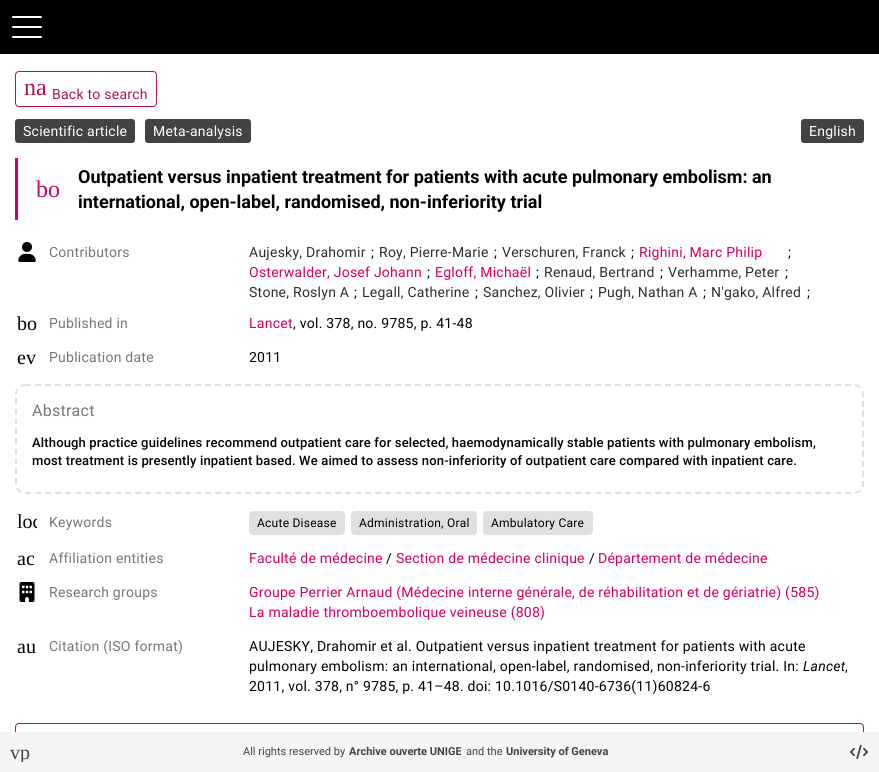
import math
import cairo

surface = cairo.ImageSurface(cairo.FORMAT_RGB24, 879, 772)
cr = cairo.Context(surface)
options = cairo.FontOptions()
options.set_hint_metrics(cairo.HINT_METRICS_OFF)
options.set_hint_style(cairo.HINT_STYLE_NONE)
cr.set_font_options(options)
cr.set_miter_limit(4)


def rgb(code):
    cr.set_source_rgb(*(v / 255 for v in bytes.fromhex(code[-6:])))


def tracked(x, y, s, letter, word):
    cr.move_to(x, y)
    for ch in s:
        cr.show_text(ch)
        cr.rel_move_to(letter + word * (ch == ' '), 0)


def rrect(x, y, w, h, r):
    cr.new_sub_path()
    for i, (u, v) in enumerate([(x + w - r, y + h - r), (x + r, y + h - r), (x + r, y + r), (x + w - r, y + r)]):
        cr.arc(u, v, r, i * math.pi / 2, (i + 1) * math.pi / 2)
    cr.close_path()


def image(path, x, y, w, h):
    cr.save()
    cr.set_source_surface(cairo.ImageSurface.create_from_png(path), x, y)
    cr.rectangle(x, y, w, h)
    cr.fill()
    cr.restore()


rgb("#ffffff")
cr.paint()
rgb("#000000")
cr.rectangle(0, 0, 879, 54)
cr.fill()
rgb("#ffffff")
rrect(12, 16, 30, 2, 1)
cr.fill()
rrect(12, 26, 30, 2, 1)
cr.fill()
rrect(12, 36, 30, 2, 1)
cr.fill()
rrect(15.5, 71.5, 141, 35, 3.5)
rgb("#ad1457")
cr.set_line_width(1)
cr.stroke()
rgb("#434343")
rrect(15, 119, 120, 24, 3)
cr.fill()
rrect(145, 119, 106, 24, 3)
cr.fill()
rrect(801, 119, 63, 24, 3)
cr.fill()
rgb("#cf0063")
cr.rectangle(15, 158, 3, 62)
cr.fill()
image("img/1.png", 18, 242, 18, 20)
cr.new_path()
cr.move_to(25, 385)
cr.line_to(854, 385)
cr.curve_to(859, 385, 863, 389, 863, 394)
cr.line_to(863, 484)
cr.curve_to(863, 489, 859, 493, 854, 493)
cr.line_to(25, 493)
cr.curve_to(20, 493, 16, 489, 16, 484)
cr.line_to(16, 394)
cr.curve_to(16, 389, 20, 385, 25, 385)
cr.close_path()
rgb("#e0e0e0")
cr.set_line_width(2)
cr.set_dash([6, 4])
cr.stroke()
rrect(249, 511, 96, 24, 4)
cr.fill()
rrect(351, 511, 126, 24, 4)
cr.fill()
rrect(483, 511, 110, 24, 4)
cr.fill()
image("img/2.png", 19, 582, 16, 20)
rrect(15.5, 723.5, 848, 35, 3.5)
rgb("#ad1457")
cr.set_line_width(1)
cr.set_dash([])
cr.stroke()
rgb("#f5f5f5")
cr.rectangle(0, 732, 879, 40)
cr.fill()
image("img/3.png", 850, 744, 18, 16)
cr.select_font_face("Liberation Serif")
cr.set_font_size(24)
rgb("#ad1457")
cr.move_to(24, 95)
cr.show_text("na")
cr.select_font_face("Roboto")
cr.set_font_size(14)
tracked(52, 99, "Back to search", 0.25, 0)
rgb("#ffffff")
for x, y, s in [
    (23, 136, "Scientific article"),
    (153, 136, "Meta-analysis"),
    (809, 136, "English"),
]:
    tracked(x, y, s, 0.25, 0)
cr.select_font_face("Liberation Serif")
cr.set_font_size(24)
rgb("#cf0063")
cr.move_to(36, 197)
cr.show_text("bo")
cr.select_font_face("Roboto", cairo.FONT_SLANT_NORMAL, cairo.FONT_WEIGHT_BOLD)
cr.set_font_size(18)
rgb("#000000")
cr.move_to(78, 183)
cr.show_text("Outpatient versus inpatient treatment for patients with acute pulmonary embolism: an")
cr.move_to(78, 208)
cr.show_text("international, open-label, randomised, non-inferiority trial")
cr.select_font_face("Roboto")
cr.set_font_size(14)
rgb("#767676")
tracked(49, 257, "Contributors", 0.25, 0)
rgb("#292f33")
tracked(249, 257, "Aujesky, Drahomir", 0.25, 0)
rgb("#000000")
tracked(371, 257, ";", 0.25, 0)
rgb("#292f33")
tracked(379, 257, "Roy, Pierre-Marie", 0.25, 0)
rgb("#000000")
tracked(494, 257, ";", 0.25, 0)
rgb("#292f33")
tracked(502, 257, "Verschuren, Franck", 0.25, 0)
rgb("#000000")
tracked(631, 257, ";", 0.25, 0)
rgb("#cf0063")
tracked(639, 257, "Righini, Marc Philip", 0.25, 0)
rgb("#000000")
tracked(788, 257, ";", 0.25, 0)
rgb("#cf0063")
tracked(249, 277, "Osterwalder, Josef Johann", 0.25, 0)
rgb("#000000")
tracked(427, 277, ";", 0.25, 0)
rgb("#cf0063")
tracked(435, 277, "Egloff, Michaël", 0.25, 0)
rgb("#000000")
tracked(536, 277, ";", 0.25, 0)
rgb("#292f33")
tracked(544, 277, "Renaud, Bertrand", 0.25, 0)
rgb("#000000")
tracked(660, 277, ";", 0.25, 0)
rgb("#292f33")
tracked(668, 277, "Verhamme, Peter", 0.25, 0)
rgb("#000000")
tracked(785, 277, ";", 0.25, 0)
rgb("#292f33")
tracked(249, 297, "Stone, Roslyn A", 0.25, 0)
rgb("#000000")
tracked(354, 297, ";", 0.25, 0)
rgb("#292f33")
tracked(362, 297, "Legall, Catherine", 0.25, 0)
rgb("#000000")
tracked(475, 297, ";", 0.25, 0)
rgb("#292f33")
tracked(483, 297, "Sanchez, Olivier", 0.25, 0)
rgb("#000000")
tracked(590, 297, ";", 0.25, 0)
rgb("#292f33")
tracked(598, 297, "Pugh, Nathan A", 0.25, 0)
rgb("#000000")
tracked(703, 297, ";", 0.25, 0)
rgb("#292f33")
tracked(711, 297, "N'gako, Alfred", 0.25, 0)
rgb("#000000")
tracked(807, 297, ";", 0.25, 0)
cr.select_font_face("Liberation Serif")
cr.set_font_size(20)
cr.move_to(17, 330)
cr.show_text("bo")
cr.select_font_face("Roboto")
cr.set_font_size(14)
rgb("#767676")
tracked(49, 328, "Published in", 0.25, 0)
rgb("#cf0063")
tracked(249, 328, "Lancet", 0.25, 0)
rgb("#000000")
tracked(293, 328, ", vol. 378, no. 9785, p. 41-48", 0.25, 0)
cr.select_font_face("Liberation Serif")
cr.set_font_size(20)
cr.move_to(17, 364)
cr.show_text("ev")
cr.select_font_face("Roboto")
cr.set_font_size(14)
rgb("#767676")
tracked(49, 362, "Publication date", 0.25, 0)
rgb("#000000")
tracked(249, 362, "2011", 0.25, 0)
cr.set_font_size(16)
rgb("#767676")
tracked(32, 416, "Abstract", 0.25, 0)
cr.select_font_face("Roboto Medium")
cr.set_font_size(13)
rgb("#000000")
tracked(32, 447, "Although practice guidelines recommend outpatient care for selected, haemodynamically stable patients with pulmonary embolism,", 0.16, 0)
tracked(32, 465, "most treatment is presently inpatient based. We aimed to assess non-inferiority of outpatient care compared with inpatient care.", 0.16, 0)
cr.save()
cr.rectangle(17, 511, 20, 20)
cr.clip()
cr.select_font_face("Liberation Serif")
cr.set_font_size(20)
cr.move_to(17, 528)
cr.show_text("loc")
cr.restore()
cr.select_font_face("Roboto")
cr.set_font_size(14)
rgb("#767676")
tracked(49, 527, "Keywords", 0.25, 0)
cr.set_font_size(12)
rgb("#000000")
for x, y, s in [
    (257, 527, "Acute Disease"),
    (359, 527, "Administration, Oral"),
    (491, 527, "Ambulatory Care"),
]:
    tracked(x, y, s, 0.25, 0)
cr.select_font_face("Liberation Serif")
cr.set_font_size(20)
cr.move_to(17, 565)
cr.show_text("ac")
cr.select_font_face("Roboto")
cr.set_font_size(14)
rgb("#767676")
tracked(49, 563, "Affiliation entities", 0.25, 0)
rgb("#cf0063")
tracked(249, 563, "Faculté de médecine", 0.25, 0)
rgb("#000000")
tracked(386, 563, "/", 0.25, 0)
rgb("#cf0063")
tracked(396, 563, "Section de médecine clinique", 0.25, 0)
rgb("#000000")
tracked(589, 563, "/", 0.25, 0)
rgb("#cf0063")
tracked(598, 563, "Département de médecine", 0.25, 0)
rgb("#767676")
tracked(49, 597, "Research groups", 0.25, 0)
rgb("#cf0063")
tracked(249, 597, "Groupe Perrier Arnaud (Médecine interne générale, de réhabilitation et de gériatrie) (585)", 0.25, 0)
tracked(249, 617, "La maladie thromboembolique veineuse (808)", 0.25, 0)
cr.select_font_face("Liberation Serif")
cr.set_font_size(20)
rgb("#000000")
cr.move_to(17, 653)
cr.show_text("au")
cr.select_font_face("Roboto")
cr.set_font_size(14)
rgb("#767676")
tracked(49, 651, "Citation (ISO format)", 0.25, 0)
rgb("#000000")
tracked(249, 651, "AUJESKY, Drahomir et al. Outpatient versus inpatient treatment for patients with acute", 0.25, 0)
tracked(249, 671, "pulmonary embolism: an international, open-label, randomised, non-inferiority trial. In:", 0.25, 0)
cr.select_font_face("Roboto", cairo.FONT_SLANT_ITALIC)
tracked(803, 671, "Lancet", 0.25, 0)
cr.select_font_face("Roboto")
tracked(845, 671, ",", 0.25, 0)
tracked(249, 691, "2011, vol. 378, n° 9785, p. 41–48. doi: 10.1016/S0140-6736(11)60824-6", 0.25, 0)
cr.save()
cr.rectangle(10, 742, 20, 20)
cr.clip()
cr.select_font_face("Liberation Serif")
cr.set_font_size(20)
rgb("#434343")
cr.move_to(10, 759)
cr.show_text("vp")
cr.restore()
cr.set_font_size(11)
rgb("#434343")
cr.move_to(243, 755)
cr.show_text("All rights reserved by")
cr.select_font_face("Roboto", cairo.FONT_SLANT_NORMAL, cairo.FONT_WEIGHT_BOLD)
cr.move_to(349, 755)
cr.show_text("Archive ouverte UNIGE")
cr.select_font_face("Roboto")
cr.move_to(466, 755)
cr.show_text("and the")
cr.select_font_face("Roboto", cairo.FONT_SLANT_NORMAL, cairo.FONT_WEIGHT_BOLD)
cr.move_to(506, 755)
cr.show_text("University of Geneva")
surface.write_to_png("page.png")
